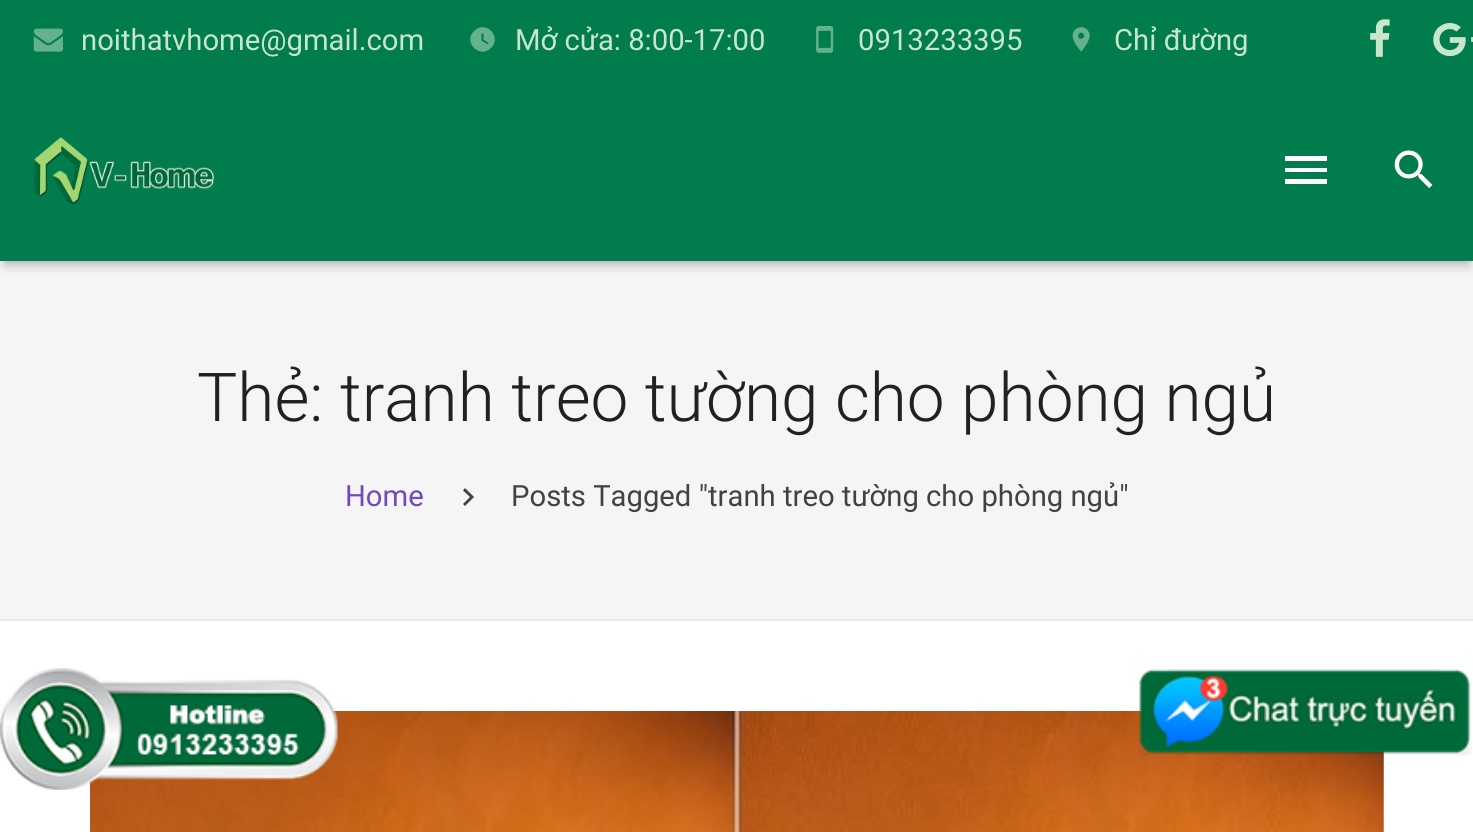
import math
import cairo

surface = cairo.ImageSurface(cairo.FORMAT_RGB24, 1473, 832)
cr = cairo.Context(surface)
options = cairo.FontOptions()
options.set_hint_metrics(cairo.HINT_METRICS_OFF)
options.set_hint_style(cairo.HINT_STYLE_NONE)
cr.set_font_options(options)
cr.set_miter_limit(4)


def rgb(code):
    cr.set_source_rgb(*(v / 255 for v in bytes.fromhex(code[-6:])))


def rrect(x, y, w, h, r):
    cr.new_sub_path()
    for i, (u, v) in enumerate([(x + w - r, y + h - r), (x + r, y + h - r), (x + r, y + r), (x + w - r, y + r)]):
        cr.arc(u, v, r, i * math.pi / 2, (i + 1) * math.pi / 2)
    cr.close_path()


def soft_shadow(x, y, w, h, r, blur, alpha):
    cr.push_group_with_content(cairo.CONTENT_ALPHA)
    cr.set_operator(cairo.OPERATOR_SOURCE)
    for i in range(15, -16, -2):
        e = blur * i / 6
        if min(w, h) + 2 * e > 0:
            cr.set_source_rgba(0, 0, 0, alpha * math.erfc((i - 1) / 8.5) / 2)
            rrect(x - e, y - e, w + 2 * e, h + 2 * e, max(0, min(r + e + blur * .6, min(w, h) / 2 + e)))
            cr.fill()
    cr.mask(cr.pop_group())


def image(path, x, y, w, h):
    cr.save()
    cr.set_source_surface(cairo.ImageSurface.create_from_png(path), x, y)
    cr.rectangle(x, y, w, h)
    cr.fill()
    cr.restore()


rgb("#ffffff")
cr.paint()
rgb("#007c4d")
cr.rectangle(0, 0, 1473, 81)
cr.fill()
image("img/1.png", 33, 28, 30, 24)
rgb("#64b18b")
cr.new_path()
cr.move_to(488, 44.5)
cr.line_to(488.5, 43)
cr.line_to(483.5, 39.5)
cr.line_to(483.5, 33.5)
cr.line_to(481.5, 33.5)
cr.line_to(481.5, 40.5)
cr.close_path()
cr.move_to(474, 31)
cr.curve_to(485.5, 19.5, 502.5, 36.5, 491, 48)
cr.curve_to(480, 59.5, 462.5, 42, 474, 31)
cr.close_path()
cr.fill()
image("img/2.png", 816, 25, 18, 28)
image("img/3.png", 1072, 27, 18, 25)
image("img/4.png", 1370, 19, 20, 38)
image("img/5.png", 1433, 23, 40, 34)
rgb("#f5f5f5")
cr.rectangle(0, 261, 1473, 358)
cr.fill()
rgb("#000000")
soft_shadow(2, 88, 1470, 175, 0, 1, 0.05)
soft_shadow(5, 95, 1464, 171, 0, 5.5, 0.22)
rgb("#007c4d")
cr.rectangle(0, 81, 1473, 180)
cr.fill()
image("img/6.png", 34, 137, 180, 68)
rgb("#ffffff")
cr.new_path()
cr.move_to(1285, 156)
cr.line_to(1327, 156)
cr.line_to(1327, 161)
cr.line_to(1285, 161)
cr.close_path()
cr.move_to(1285, 172)
cr.line_to(1285, 168)
cr.line_to(1327, 168)
cr.line_to(1327, 172)
cr.close_path()
cr.move_to(1285, 184)
cr.line_to(1285, 179)
cr.line_to(1327, 179)
cr.line_to(1327, 184)
cr.close_path()
cr.fill()
image("img/7.png", 1394, 150, 39, 39)
cr.save()
cr.rectangle(0, 0, 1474, 621)
cr.clip()
rgb("#ebebeb")
cr.set_fill_rule(cairo.FILL_RULE_EVEN_ODD)
cr.new_path()
cr.move_to(-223, -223)
cr.line_to(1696, -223)
cr.line_to(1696, 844)
cr.line_to(-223, 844)
cr.close_path()
cr.move_to(0, -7)
cr.line_to(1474, -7)
cr.curve_to(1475, -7, 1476, -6, 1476, -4)
cr.line_to(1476, 616)
cr.curve_to(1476, 618, 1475, 619, 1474, 619)
cr.line_to(0, 619)
cr.curve_to(-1, 619, -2, 618, -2, 616)
cr.line_to(-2, -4)
cr.curve_to(-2, -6, -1, -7, 0, -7)
cr.close_path()
cr.fill()
cr.restore()
rgb("#424242")
cr.new_path()
cr.move_to(463, 504)
cr.line_to(470, 497)
cr.line_to(463, 490.5)
cr.line_to(465, 488)
cr.line_to(474, 497)
cr.line_to(465, 506)
cr.close_path()
cr.fill()
image("img/8.png", 90, 711, 1294, 121)
image("img/9.png", 0, 668, 338, 122)
image("img/10.png", 1138, 669, 334, 87)
cr.select_font_face("Roboto")
cr.set_font_size(29.25)
rgb("#c8e6c9")
for x, y, s in [
    (81, 50, "noithatvhome@gmail.com"),
    (515, 50, "Mở cửa: 8:00-17:00"),
    (858, 50, "0913233395"),
    (1114, 50, "Chỉ đường"),
]:
    cr.move_to(x, y)
    cr.show_text(s)
cr.select_font_face("Roboto Light")
cr.set_font_size(67.5)
rgb("#212121")
cr.move_to(197, 421)
cr.show_text("Thẻ: tranh treo tường cho phòng ngủ")
cr.select_font_face("Roboto")
cr.set_font_size(29.25)
rgb("#7049ba")
cr.move_to(345, 506)
cr.show_text("Home")
rgb("#424242")
cr.move_to(511, 506)
cr.show_text("Posts Tagged \"tranh treo tường cho phòng ngủ\"")
surface.write_to_png("page.png")
